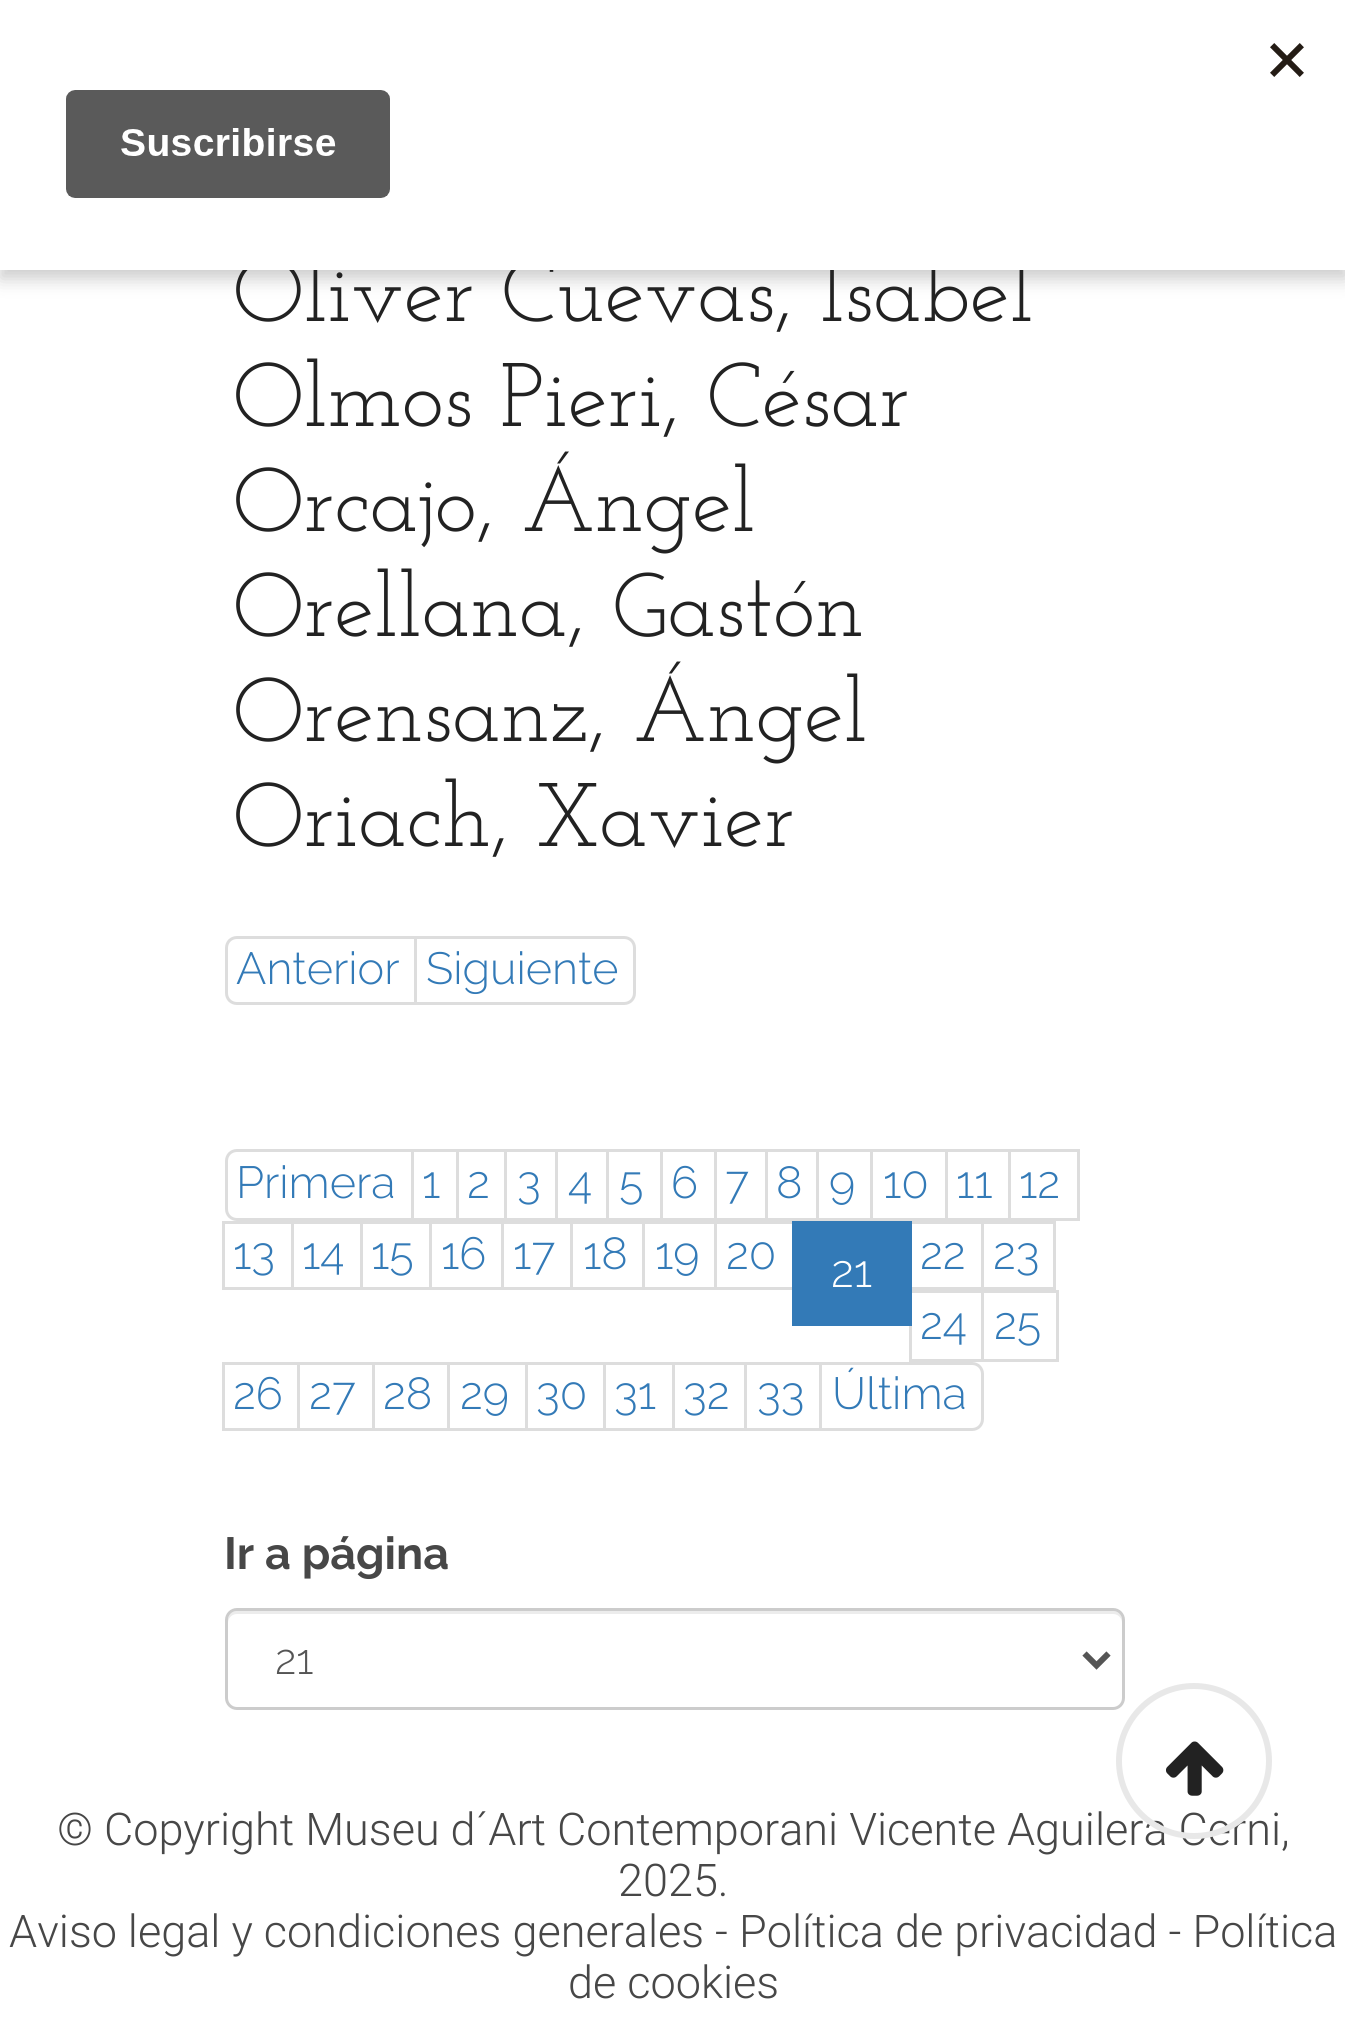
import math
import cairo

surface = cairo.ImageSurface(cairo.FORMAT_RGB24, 1345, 2032)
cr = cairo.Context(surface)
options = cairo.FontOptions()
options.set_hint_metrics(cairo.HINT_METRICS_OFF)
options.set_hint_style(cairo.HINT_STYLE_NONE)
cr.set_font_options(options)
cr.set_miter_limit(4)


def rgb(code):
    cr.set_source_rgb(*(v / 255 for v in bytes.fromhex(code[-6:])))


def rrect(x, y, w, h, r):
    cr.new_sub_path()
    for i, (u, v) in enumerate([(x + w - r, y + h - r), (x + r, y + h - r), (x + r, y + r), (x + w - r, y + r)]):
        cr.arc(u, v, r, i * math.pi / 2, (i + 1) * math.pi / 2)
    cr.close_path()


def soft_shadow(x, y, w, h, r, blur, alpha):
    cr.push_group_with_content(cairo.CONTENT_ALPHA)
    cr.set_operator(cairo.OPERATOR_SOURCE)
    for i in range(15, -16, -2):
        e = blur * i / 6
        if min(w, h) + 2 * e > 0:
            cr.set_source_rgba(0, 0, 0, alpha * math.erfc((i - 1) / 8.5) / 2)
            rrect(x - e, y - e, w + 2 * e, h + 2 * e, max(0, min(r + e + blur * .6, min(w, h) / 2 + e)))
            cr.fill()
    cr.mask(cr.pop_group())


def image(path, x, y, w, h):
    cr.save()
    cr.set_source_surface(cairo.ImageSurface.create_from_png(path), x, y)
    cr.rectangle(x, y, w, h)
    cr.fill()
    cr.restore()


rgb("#ffffff")
cr.paint()
rgb("#000000")
soft_shadow(0, 9, 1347, 270, 0, 9, 0.2)
cr.new_path()
cr.move_to(237, 937.5)
cr.line_to(415.5, 937.5)
cr.line_to(415.5, 1003.5)
cr.line_to(237, 1003.5)
cr.curve_to(231, 1003.5, 226.5, 999, 226.5, 993)
cr.line_to(226.5, 948)
cr.curve_to(226.5, 942, 231, 937.5, 237, 937.5)
cr.close_path()
rgb("#dddddd")
cr.set_line_width(3)
cr.stroke()
rgb("#ffffff")
cr.new_path()
cr.move_to(415.5, 937.5)
cr.line_to(624, 937.5)
cr.curve_to(630, 937.5, 634.5, 942, 634.5, 948)
cr.line_to(634.5, 993)
cr.curve_to(634.5, 999, 630, 1003.5, 624, 1003.5)
cr.line_to(415.5, 1003.5)
cr.close_path()
cr.fill_preserve()
rgb("#dddddd")
cr.stroke()
cr.rectangle(412.5, 1150.5, 45, 69)
cr.stroke()
rgb("#ffffff")
cr.new_path()
cr.move_to(237, 1150.5)
cr.line_to(412.5, 1150.5)
cr.line_to(412.5, 1219.5)
cr.line_to(237, 1219.5)
cr.curve_to(231, 1219.5, 226.5, 1215, 226.5, 1209)
cr.line_to(226.5, 1161)
cr.curve_to(226.5, 1155, 231, 1150.5, 237, 1150.5)
cr.close_path()
cr.fill_preserve()
rgb("#dddddd")
cr.stroke()
cr.rectangle(457.5, 1150.5, 48, 69)
cr.stroke()
cr.rectangle(505.5, 1150.5, 51, 69)
cr.stroke()
cr.rectangle(556.5, 1150.5, 51, 69)
cr.stroke()
cr.rectangle(607.5, 1150.5, 54, 69)
cr.stroke()
cr.rectangle(661.5, 1150.5, 54, 69)
cr.stroke()
cr.rectangle(715.5, 1150.5, 51, 69)
cr.stroke()
cr.rectangle(766.5, 1150.5, 51, 69)
cr.stroke()
cr.rectangle(817.5, 1150.5, 54, 69)
cr.stroke()
cr.rectangle(871.5, 1150.5, 75, 69)
cr.stroke()
cr.rectangle(946.5, 1150.5, 63, 69)
cr.stroke()
cr.rectangle(1009.5, 1150.5, 69, 69)
cr.stroke()
cr.rectangle(223.5, 1222.5, 69, 66)
cr.stroke()
cr.rectangle(292.5, 1222.5, 69, 66)
cr.stroke()
cr.rectangle(361.5, 1222.5, 69, 66)
cr.stroke()
cr.rectangle(430.5, 1222.5, 72, 66)
cr.stroke()
cr.rectangle(502.5, 1222.5, 69, 66)
cr.stroke()
cr.rectangle(571.5, 1222.5, 72, 66)
cr.stroke()
cr.rectangle(643.5, 1222.5, 72, 66)
cr.stroke()
cr.rectangle(715.5, 1222.5, 78, 66)
cr.stroke()
cr.rectangle(910.5, 1222.5, 72, 66)
cr.stroke()
cr.rectangle(910.5, 1291.5, 72, 69)
cr.stroke()
rgb("#337ab7")
cr.rectangle(792, 1221, 120, 105)
cr.fill()
cr.rectangle(982.5, 1222.5, 72, 66)
rgb("#dddddd")
cr.stroke()
cr.rectangle(982.5, 1291.5, 75, 69)
cr.stroke()
cr.rectangle(223.5, 1363.5, 75, 66)
cr.stroke()
cr.rectangle(298.5, 1363.5, 75, 66)
cr.stroke()
cr.rectangle(373.5, 1363.5, 75, 66)
cr.stroke()
cr.rectangle(448.5, 1363.5, 78, 66)
cr.stroke()
cr.rectangle(526.5, 1363.5, 78, 66)
cr.stroke()
cr.rectangle(604.5, 1363.5, 69, 66)
cr.stroke()
cr.rectangle(673.5, 1363.5, 72, 66)
cr.stroke()
cr.rectangle(745.5, 1363.5, 75, 66)
cr.stroke()
rgb("#ffffff")
cr.new_path()
cr.move_to(820.5, 1363.5)
cr.line_to(972, 1363.5)
cr.curve_to(978, 1363.5, 982.5, 1368, 982.5, 1374)
cr.line_to(982.5, 1419)
cr.curve_to(982.5, 1425, 978, 1429.5, 972, 1429.5)
cr.line_to(820.5, 1429.5)
cr.close_path()
cr.fill_preserve()
rgb("#dddddd")
cr.stroke()
rgb("#ececec")
cr.new_path()
cr.move_to(237, 1614)
cr.line_to(1113, 1614)
cr.curve_to(1118, 1614, 1122, 1618, 1122, 1623)
cr.line_to(1122, 1620)
cr.curve_to(1122, 1615, 1118, 1611, 1113, 1611)
cr.line_to(237, 1611)
cr.curve_to(232, 1611, 228, 1615, 228, 1620)
cr.line_to(228, 1623)
cr.curve_to(228, 1618, 232, 1614, 237, 1614)
cr.close_path()
cr.fill()
rrect(226.5, 1609.5, 897, 99, 10.5)
rgb("#cccccc")
cr.stroke()
cr.new_path()
cr.move_to(1084.5, 1653.5)
cr.line_to(1096.5, 1665.5)
cr.line_to(1108.5, 1653.5)
rgb("#555555")
cr.set_line_width(6)
cr.stroke()
cr.select_font_face("Josefin Slab")
cr.set_font_size(90)
rgb("#222222")
cr.move_to(233, 321)
cr.show_text("Oliver Cuevas, Isabel")
rgb("#ffffff")
cr.rectangle(0, 0, 1345, 270)
cr.fill()
image("img/1.png", 66, 43, 1238, 155)
rgb("#222222")
for x, y, s in [
    (233, 426, "Olmos Pieri, César"),
    (233, 531, "Orcajo, Ángel"),
    (233, 636, "Orellana, Gastón"),
    (233, 741, "Orensanz, Ángel"),
    (233, 846, "Oriach, Xavier"),
]:
    cr.move_to(x, y)
    cr.show_text(s)
cr.select_font_face("Raleway Light")
cr.set_font_size(45)
rgb("#337ab7")
for x, y, s in [
    (236, 984, "Anterior"),
    (426, 984, "Siguiente"),
    (236, 1198, "Primera"),
    (422, 1198, "1"),
    (467, 1198, "2"),
    (517, 1198, "3"),
    (568, 1198, "4"),
    (619, 1198, "5"),
    (671, 1198, "6"),
    (725, 1198, "7"),
    (776, 1198, "8"),
    (829, 1198, "9"),
    (883, 1198, "10"),
    (956, 1198, "11"),
    (1019, 1198, "12"),
    (233, 1269, "13"),
    (302, 1269, "14"),
    (371, 1269, "15"),
    (441, 1269, "16"),
    (513, 1269, "17"),
    (583, 1269, "18"),
    (655, 1269, "19"),
    (726, 1269, "20"),
]:
    cr.move_to(x, y)
    cr.show_text(s)
rgb("#ffffff")
cr.move_to(831, 1287)
cr.show_text("21")
rgb("#337ab7")
for x, y, s in [
    (920, 1269, "22"),
    (993, 1269, "23"),
    (920, 1339, "24"),
    (994, 1339, "25"),
    (233, 1409, "26"),
    (309, 1409, "27"),
    (383, 1409, "28"),
    (460, 1409, "29"),
    (536, 1409, "30"),
    (614, 1409, "31"),
    (683, 1409, "32"),
    (757, 1409, "33"),
    (832, 1409, "Última"),
]:
    cr.move_to(x, y)
    cr.show_text(s)
cr.select_font_face("Raleway", cairo.FONT_SLANT_NORMAL, cairo.FONT_WEIGHT_BOLD)
rgb("#474747")
cr.move_to(224, 1569)
cr.show_text("Ir a página")
cr.select_font_face("Raleway Light")
cr.set_font_size(42)
rgb("#555555")
cr.move_to(275, 1674)
cr.show_text("21")
cr.select_font_face("Roboto Light")
cr.set_font_size(45)
rgb("#474747")
cr.move_to(57, 1845)
cr.show_text("© Copyright Museu d´Art Contemporani Vicente Aguilera Cerni,")
cr.new_path()
cr.arc(1194, 1761, 75, 0, 2 * math.pi)
rgb("#e8e8e8")
cr.stroke()
image("img/2.png", 1166, 1741, 58, 55)
rgb("#474747")
for x, y, s in [
    (618, 1896, "2025."),
    (9, 1947, "Aviso legal y condiciones generales - Política de privacidad - Política"),
    (568, 1998, "de cookies"),
]:
    cr.move_to(x, y)
    cr.show_text(s)
surface.write_to_png("page.png")
